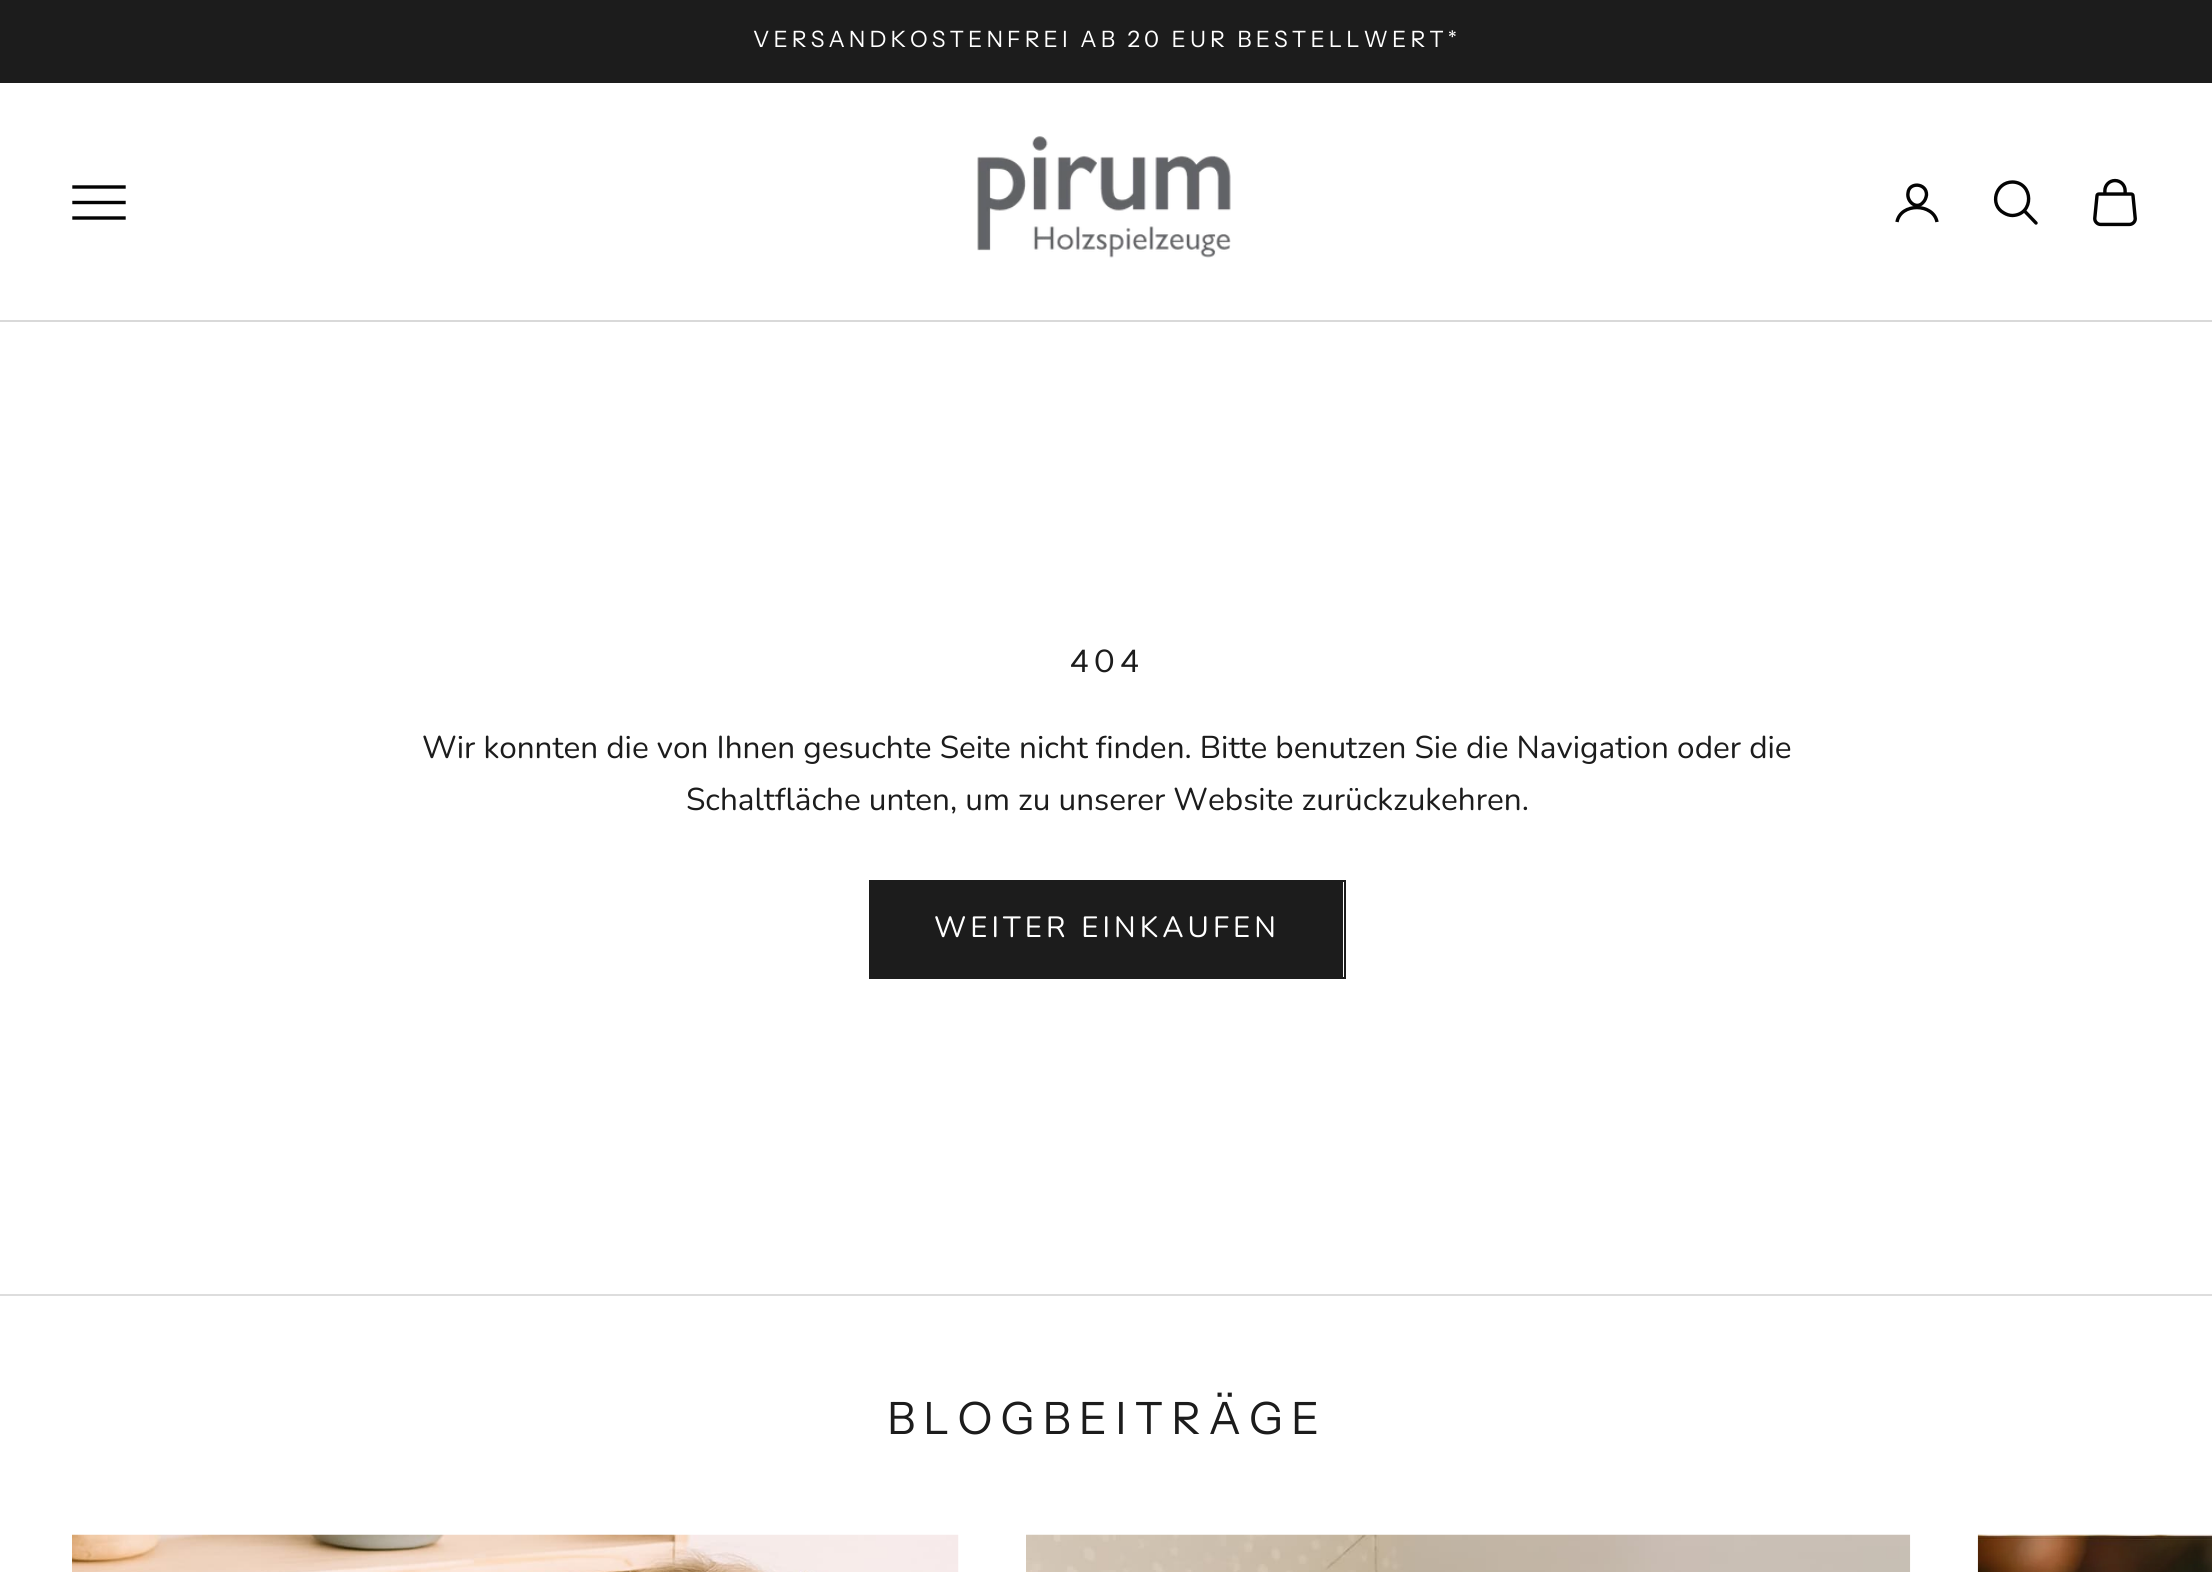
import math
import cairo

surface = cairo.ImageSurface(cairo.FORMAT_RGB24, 2212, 1572)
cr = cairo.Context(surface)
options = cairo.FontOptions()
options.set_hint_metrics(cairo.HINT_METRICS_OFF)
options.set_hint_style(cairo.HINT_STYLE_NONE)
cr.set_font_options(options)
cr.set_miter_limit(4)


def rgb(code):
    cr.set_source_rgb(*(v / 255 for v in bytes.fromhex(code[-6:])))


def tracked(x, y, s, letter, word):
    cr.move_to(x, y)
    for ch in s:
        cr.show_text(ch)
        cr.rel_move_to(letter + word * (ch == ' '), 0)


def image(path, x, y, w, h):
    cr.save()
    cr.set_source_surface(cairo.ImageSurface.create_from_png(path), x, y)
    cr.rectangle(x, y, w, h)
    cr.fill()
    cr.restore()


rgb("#ffffff")
cr.paint()
rgb("#1c1c1c")
cr.rectangle(0, 0, 2212, 83)
cr.fill()
rgb("#d9d9d9")
cr.rectangle(0, 320, 2212, 2)
cr.fill()
cr.new_path()
cr.move_to(74, 218)
cr.line_to(124, 218)
cr.move_to(74, 202.5)
cr.line_to(124, 202.5)
cr.move_to(74, 187)
cr.line_to(124, 187)
rgb("#030303")
cr.set_line_width(3.4)
cr.set_line_cap(cairo.LINE_CAP_SQUARE)
cr.stroke()
image("img/1.png", 977, 136, 254, 122)
cr.new_path()
cr.move_to(1926.5, 195)
cr.curve_to(1926, 198, 1925, 200.5, 1923, 202.5)
cr.curve_to(1916.5, 210, 1906.5, 201.5, 1908, 193)
cr.curve_to(1909, 181.5, 1927, 183, 1926.5, 195)
cr.close_path()
cr.set_line_cap(cairo.LINE_CAP_ROUND)
cr.set_line_join(cairo.LINE_JOIN_ROUND)
cr.stroke()
cr.new_path()
cr.move_to(1897, 222)
cr.curve_to(1900.5, 202.5, 1933.5, 203, 1937, 222)
cr.set_line_cap(cairo.LINE_CAP_BUTT)
cr.set_line_join(cairo.LINE_JOIN_MITER)
cr.stroke()
cr.new_path()
cr.move_to(2012.5, 182)
cr.curve_to(1995.5, 182, 1989, 205, 2004, 213)
cr.curve_to(2006.5, 214.5, 2009.5, 215.5, 2012.5, 215.5)
cr.curve_to(2034.5, 214.5, 2033.5, 182.5, 2012.5, 182)
cr.close_path()
cr.stroke()
cr.new_path()
cr.move_to(2024.5, 211)
cr.line_to(2036, 223)
cr.set_line_cap(cairo.LINE_CAP_ROUND)
cr.stroke()
image("img/2.png", 2093, 178, 44, 49)
rgb("#1c1c1c")
cr.rectangle(871, 882, 472, 95)
cr.fill()
cr.rectangle(870, 881, 475, 97)
cr.set_line_width(2)
cr.set_line_cap(cairo.LINE_CAP_BUTT)
cr.stroke()
rgb("#dddddd")
cr.rectangle(0, 1294, 2212, 2)
cr.fill()
image("img/3.png", 72, 1534, 887, 38)
image("img/4.png", 1026, 1534, 885, 38)
image("img/5.png", 1977, 1534, 235, 38)
cr.select_font_face("Instrument Sans")
cr.set_font_size(22.5)
rgb("#ffffff")
tracked(753, 47, "VERSANDKOSTENFREI AB 20 EUR BESTELLWERT*", 4.05, 0)
cr.set_font_size(31)
rgb("#1c1c1c")
tracked(1070, 672, "404", 5.5, 0)
cr.select_font_face("Nunito")
cr.set_font_size(31.5)
cr.move_to(422, 758)
cr.show_text("Wir konnten die von Ihnen gesuchte Seite nicht finden. Bitte benutzen Sie die Navigation oder die")
cr.move_to(686, 810)
cr.show_text("Schaltfläche unten, um zu unserer Website zurückzukehren.")
cr.set_font_size(29.25)
rgb("#ffffff")
tracked(934, 937, "WEITER EINKAUFEN", 4.1, 0)
cr.select_font_face("Instrument Sans")
cr.set_font_size(44.5)
rgb("#1c1c1c")
tracked(887, 1434, "BLOGBEITRÄGE", 8, 0)
surface.write_to_png("page.png")
